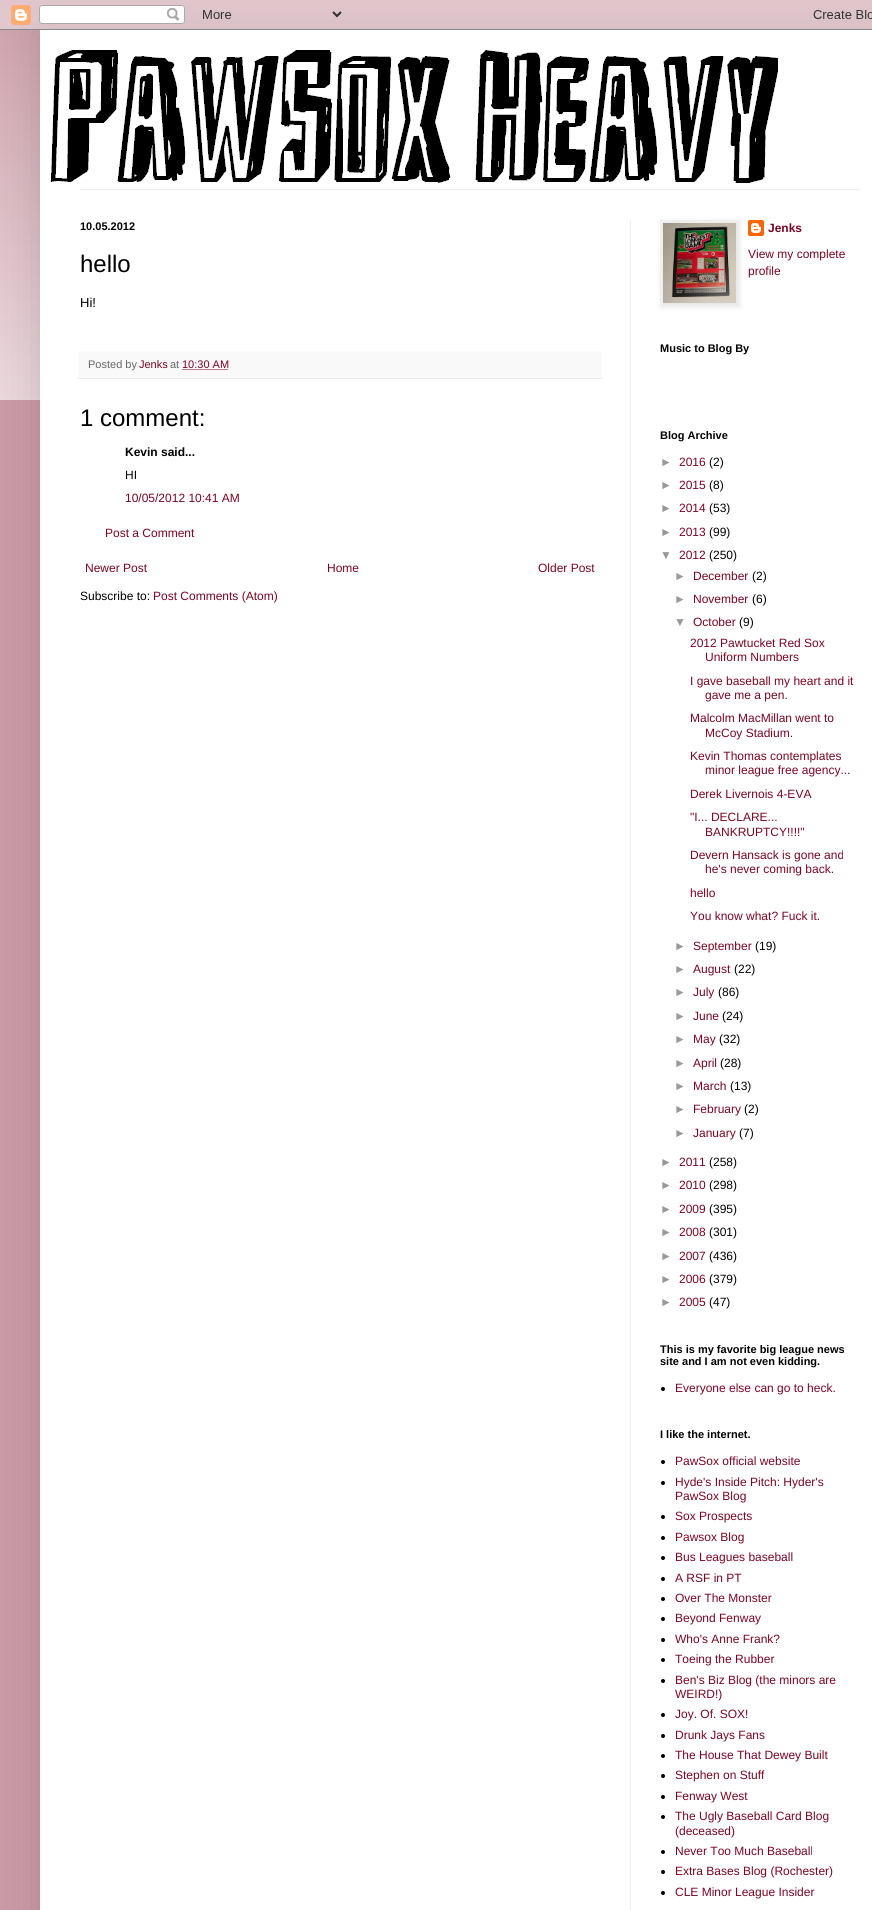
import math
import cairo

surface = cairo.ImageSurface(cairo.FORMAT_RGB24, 872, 1910)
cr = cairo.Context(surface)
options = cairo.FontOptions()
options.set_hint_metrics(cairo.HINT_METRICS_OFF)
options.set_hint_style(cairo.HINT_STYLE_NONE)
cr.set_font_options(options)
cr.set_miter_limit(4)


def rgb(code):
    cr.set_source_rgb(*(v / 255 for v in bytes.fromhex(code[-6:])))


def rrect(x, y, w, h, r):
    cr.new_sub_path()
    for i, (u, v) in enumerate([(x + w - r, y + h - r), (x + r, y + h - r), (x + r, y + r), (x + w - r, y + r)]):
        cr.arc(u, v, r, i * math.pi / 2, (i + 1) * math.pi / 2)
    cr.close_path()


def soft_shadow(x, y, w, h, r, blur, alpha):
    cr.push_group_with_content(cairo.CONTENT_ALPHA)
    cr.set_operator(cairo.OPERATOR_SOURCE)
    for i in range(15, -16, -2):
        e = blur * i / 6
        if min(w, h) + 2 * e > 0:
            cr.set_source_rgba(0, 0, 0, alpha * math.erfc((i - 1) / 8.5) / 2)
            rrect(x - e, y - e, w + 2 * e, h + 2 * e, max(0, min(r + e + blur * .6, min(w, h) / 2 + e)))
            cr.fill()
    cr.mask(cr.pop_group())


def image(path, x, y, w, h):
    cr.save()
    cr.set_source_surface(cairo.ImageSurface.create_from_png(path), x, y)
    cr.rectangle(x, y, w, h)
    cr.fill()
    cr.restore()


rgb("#ca9ba6")
cr.paint()
image("img/1.png", 0, 0, 872, 400)
rgb("#000000")
soft_shadow(40, 30, 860, 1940, 0, 20, 0.15)
image("img/2.png", 0, 0, 872, 30)
rgb("#ffffff")
cr.rectangle(40, 30, 832, 1880)
cr.fill()
image("img/3.png", 50, 50, 728, 133)
for x, y, w, h, color in [
    (80, 189, 780, 1, "#eeeeee"),
    (630, 220, 1, 1690, "#eeeeee"),
    (78, 351, 524, 27, "#f9f9f9"),
    (78, 378, 524, 1, "#eeeeee"),
]:
    rgb(color)
    cr.rectangle(x, y, w, h)
    cr.fill()
cr.new_path()
cr.move_to(182.5, 369.5)
cr.line_to(228.5, 369.5)
rgb("#790521")
cr.set_line_width(1)
cr.set_dash([1, 1])
cr.stroke()
image("img/5.png", 748, 220, 16, 16)
rgb("#000000")
soft_shadow(661, 221, 79, 86, 0, 2.5, 0.1)
cr.rectangle(660.5, 220.5, 78, 85)
rgb("#eeeeee")
cr.set_dash([])
cr.stroke()
image("img/4.png", 663, 223, 73, 80)
rgb("#000000")
cr.arc(663, 1389, 2, 0, 2 * math.pi)
cr.fill()
cr.arc(663, 1462, 2, 0, 2 * math.pi)
cr.fill()
cr.arc(663, 1483, 2, 0, 2 * math.pi)
cr.fill()
cr.arc(663, 1517, 2, 0, 2 * math.pi)
cr.fill()
cr.arc(663, 1538, 2, 0, 2 * math.pi)
cr.fill()
cr.arc(663, 1558, 2, 0, 2 * math.pi)
cr.fill()
cr.arc(663, 1579, 2, 0, 2 * math.pi)
cr.fill()
cr.arc(663, 1599, 2, 0, 2 * math.pi)
cr.fill()
cr.arc(663, 1619, 2, 0, 2 * math.pi)
cr.fill()
cr.arc(663, 1640, 2, 0, 2 * math.pi)
cr.fill()
cr.arc(663, 1660, 2, 0, 2 * math.pi)
cr.fill()
cr.arc(663, 1681, 2, 0, 2 * math.pi)
cr.fill()
cr.arc(663, 1715, 2, 0, 2 * math.pi)
cr.fill()
cr.arc(663, 1736, 2, 0, 2 * math.pi)
cr.fill()
cr.arc(663, 1756, 2, 0, 2 * math.pi)
cr.fill()
cr.arc(663, 1776, 2, 0, 2 * math.pi)
cr.fill()
cr.arc(663, 1797, 2, 0, 2 * math.pi)
cr.fill()
cr.arc(663, 1817, 2, 0, 2 * math.pi)
cr.fill()
cr.arc(663, 1852, 2, 0, 2 * math.pi)
cr.fill()
cr.arc(663, 1872, 2, 0, 2 * math.pi)
cr.fill()
cr.arc(663, 1893, 2, 0, 2 * math.pi)
cr.fill()
cr.select_font_face("Liberation Sans", cairo.FONT_SLANT_NORMAL, cairo.FONT_WEIGHT_BOLD)
cr.set_font_size(11)
cr.move_to(80, 230)
cr.show_text("10.05.2012")
cr.select_font_face("Liberation Sans")
cr.set_font_size(24)
cr.move_to(80, 272)
cr.show_text("hello")
cr.set_font_size(13)
cr.move_to(80, 307)
cr.show_text("Hi!")
cr.set_font_size(11)
rgb("#666666")
cr.move_to(88, 368)
cr.show_text("Posted by")
rgb("#790521")
cr.move_to(139, 368)
cr.show_text("Jenks")
rgb("#666666")
cr.move_to(170, 368)
cr.show_text("at")
rgb("#790521")
cr.move_to(182, 368)
cr.show_text("10:30 AM")
cr.set_font_size(24)
rgb("#000000")
cr.move_to(80, 426)
cr.show_text("1 comment:")
cr.select_font_face("Liberation Sans", cairo.FONT_SLANT_NORMAL, cairo.FONT_WEIGHT_BOLD)
cr.set_font_size(12)
cr.move_to(125, 456)
cr.show_text("Kevin said...")
cr.select_font_face("Liberation Sans")
cr.move_to(125, 479)
cr.show_text("HI")
rgb("#790521")
for x, y, s in [
    (125, 502, "10/05/2012 10:41 AM"),
    (105, 537, "Post a Comment"),
    (85, 572, "Newer Post"),
    (327, 572, "Home"),
    (538, 572, "Older Post"),
]:
    cr.move_to(x, y)
    cr.show_text(s)
rgb("#000000")
cr.move_to(80, 600)
cr.show_text("Subscribe to:")
rgb("#790521")
cr.move_to(153, 600)
cr.show_text("Post Comments (Atom)")
cr.select_font_face("Liberation Sans", cairo.FONT_SLANT_NORMAL, cairo.FONT_WEIGHT_BOLD)
cr.move_to(768, 232)
cr.show_text("Jenks")
cr.select_font_face("Liberation Sans")
cr.move_to(748, 258)
cr.show_text("View my complete")
cr.move_to(748, 275)
cr.show_text("profile")
cr.select_font_face("Liberation Sans", cairo.FONT_SLANT_NORMAL, cairo.FONT_WEIGHT_BOLD)
cr.set_font_size(11)
rgb("#000000")
cr.move_to(660, 352)
cr.show_text("Music to Blog By")
cr.move_to(660, 439)
cr.show_text("Blog Archive")
cr.select_font_face("Liberation Sans")
cr.set_font_size(12)
rgb("#999999")
cr.move_to(660, 466)
cr.show_text("►")
rgb("#790521")
cr.move_to(679, 466)
cr.show_text("2016")
rgb("#000000")
cr.move_to(709, 466)
cr.show_text("(2)")
rgb("#999999")
cr.move_to(660, 489)
cr.show_text("►")
rgb("#790521")
cr.move_to(679, 489)
cr.show_text("2015")
rgb("#000000")
cr.move_to(709, 489)
cr.show_text("(8)")
rgb("#999999")
cr.move_to(660, 512)
cr.show_text("►")
rgb("#790521")
cr.move_to(679, 512)
cr.show_text("2014")
rgb("#000000")
cr.move_to(709, 512)
cr.show_text("(53)")
rgb("#999999")
cr.move_to(660, 536)
cr.show_text("►")
rgb("#790521")
cr.move_to(679, 536)
cr.show_text("2013")
rgb("#000000")
cr.move_to(709, 536)
cr.show_text("(99)")
rgb("#999999")
cr.move_to(660, 559)
cr.show_text("▼")
rgb("#790521")
cr.move_to(679, 559)
cr.show_text("2012")
rgb("#000000")
cr.move_to(709, 559)
cr.show_text("(250)")
rgb("#999999")
cr.move_to(674, 580)
cr.show_text("►")
rgb("#790521")
cr.move_to(693, 580)
cr.show_text("December")
rgb("#000000")
cr.move_to(752, 580)
cr.show_text("(2)")
rgb("#999999")
cr.move_to(674, 603)
cr.show_text("►")
rgb("#790521")
cr.move_to(693, 603)
cr.show_text("November")
rgb("#000000")
cr.move_to(752, 603)
cr.show_text("(6)")
rgb("#999999")
cr.move_to(674, 626)
cr.show_text("▼")
rgb("#790521")
cr.move_to(693, 626)
cr.show_text("October")
rgb("#000000")
cr.move_to(739, 626)
cr.show_text("(9)")
rgb("#790521")
for x, y, s in [
    (690, 647, "2012 Pawtucket Red Sox"),
    (705, 661, "Uniform Numbers"),
    (690, 685, "I gave baseball my heart and it"),
    (705, 699, "gave me a pen."),
    (690, 722, "Malcolm MacMillan went to"),
    (705, 737, "McCoy Stadium."),
    (690, 760, "Kevin Thomas contemplates"),
    (705, 774, "minor league free agency..."),
    (690, 798, "Derek Livernois 4-EVA"),
    (690, 821, "\"I... DECLARE..."),
    (705, 836, "BANKRUPTCY!!!!\""),
    (690, 859, "Devern Hansack is gone and"),
    (705, 873, "he's never coming back."),
    (690, 897, "hello"),
    (690, 920, "You know what? Fuck it."),
]:
    cr.move_to(x, y)
    cr.show_text(s)
rgb("#999999")
cr.move_to(674, 950)
cr.show_text("►")
rgb("#790521")
cr.move_to(693, 950)
cr.show_text("September")
rgb("#000000")
cr.move_to(755, 950)
cr.show_text("(19)")
rgb("#999999")
cr.move_to(674, 973)
cr.show_text("►")
rgb("#790521")
cr.move_to(693, 973)
cr.show_text("August")
rgb("#000000")
cr.move_to(734, 973)
cr.show_text("(22)")
rgb("#999999")
cr.move_to(674, 996)
cr.show_text("►")
rgb("#790521")
cr.move_to(693, 996)
cr.show_text("July")
rgb("#000000")
cr.move_to(718, 996)
cr.show_text("(86)")
rgb("#999999")
cr.move_to(674, 1020)
cr.show_text("►")
rgb("#790521")
cr.move_to(693, 1020)
cr.show_text("June")
rgb("#000000")
cr.move_to(722, 1020)
cr.show_text("(24)")
rgb("#999999")
cr.move_to(674, 1043)
cr.show_text("►")
rgb("#790521")
cr.move_to(693, 1043)
cr.show_text("May")
rgb("#000000")
cr.move_to(719, 1043)
cr.show_text("(32)")
rgb("#999999")
cr.move_to(674, 1067)
cr.show_text("►")
rgb("#790521")
cr.move_to(693, 1067)
cr.show_text("April")
rgb("#000000")
cr.move_to(720, 1067)
cr.show_text("(28)")
rgb("#999999")
cr.move_to(674, 1090)
cr.show_text("►")
rgb("#790521")
cr.move_to(693, 1090)
cr.show_text("March")
rgb("#000000")
cr.move_to(730, 1090)
cr.show_text("(13)")
rgb("#999999")
cr.move_to(674, 1113)
cr.show_text("►")
rgb("#790521")
cr.move_to(693, 1113)
cr.show_text("February")
rgb("#000000")
cr.move_to(744, 1113)
cr.show_text("(2)")
rgb("#999999")
cr.move_to(674, 1137)
cr.show_text("►")
rgb("#790521")
cr.move_to(693, 1137)
cr.show_text("January")
rgb("#000000")
cr.move_to(739, 1137)
cr.show_text("(7)")
rgb("#999999")
cr.move_to(660, 1166)
cr.show_text("►")
rgb("#790521")
cr.move_to(679, 1166)
cr.show_text("2011")
rgb("#000000")
cr.move_to(709, 1166)
cr.show_text("(258)")
rgb("#999999")
cr.move_to(660, 1189)
cr.show_text("►")
rgb("#790521")
cr.move_to(679, 1189)
cr.show_text("2010")
rgb("#000000")
cr.move_to(709, 1189)
cr.show_text("(298)")
rgb("#999999")
cr.move_to(660, 1213)
cr.show_text("►")
rgb("#790521")
cr.move_to(679, 1213)
cr.show_text("2009")
rgb("#000000")
cr.move_to(709, 1213)
cr.show_text("(395)")
rgb("#999999")
cr.move_to(660, 1236)
cr.show_text("►")
rgb("#790521")
cr.move_to(679, 1236)
cr.show_text("2008")
rgb("#000000")
cr.move_to(709, 1236)
cr.show_text("(301)")
rgb("#999999")
cr.move_to(660, 1260)
cr.show_text("►")
rgb("#790521")
cr.move_to(679, 1260)
cr.show_text("2007")
rgb("#000000")
cr.move_to(709, 1260)
cr.show_text("(436)")
rgb("#999999")
cr.move_to(660, 1283)
cr.show_text("►")
rgb("#790521")
cr.move_to(679, 1283)
cr.show_text("2006")
rgb("#000000")
cr.move_to(709, 1283)
cr.show_text("(379)")
rgb("#999999")
cr.move_to(660, 1306)
cr.show_text("►")
rgb("#790521")
cr.move_to(679, 1306)
cr.show_text("2005")
rgb("#000000")
cr.move_to(709, 1306)
cr.show_text("(47)")
cr.select_font_face("Liberation Sans", cairo.FONT_SLANT_NORMAL, cairo.FONT_WEIGHT_BOLD)
cr.set_font_size(11)
cr.move_to(660, 1353)
cr.show_text("This is my favorite big league news")
cr.move_to(660, 1365)
cr.show_text("site and I am not even kidding.")
cr.select_font_face("Liberation Sans")
cr.set_font_size(12)
rgb("#790521")
cr.move_to(675, 1392)
cr.show_text("Everyone else can go to heck.")
cr.select_font_face("Liberation Sans", cairo.FONT_SLANT_NORMAL, cairo.FONT_WEIGHT_BOLD)
cr.set_font_size(11)
rgb("#000000")
cr.move_to(660, 1438)
cr.show_text("I like the internet.")
cr.select_font_face("Liberation Sans")
cr.set_font_size(12)
rgb("#790521")
for x, y, s in [
    (675, 1465, "PawSox official website"),
    (675, 1486, "Hyde's Inside Pitch: Hyder's"),
    (675, 1500, "PawSox Blog"),
    (675, 1520, "Sox Prospects"),
    (675, 1541, "Pawsox Blog"),
    (675, 1561, "Bus Leagues baseball"),
    (675, 1582, "A RSF in PT"),
    (675, 1602, "Over The Monster"),
    (675, 1622, "Beyond Fenway"),
    (675, 1643, "Who's Anne Frank?"),
    (675, 1663, "Toeing the Rubber"),
    (675, 1684, "Ben's Biz Blog (the minors are"),
    (675, 1698, "WEIRD!)"),
    (675, 1718, "Joy. Of. SOX!"),
    (675, 1739, "Drunk Jays Fans"),
    (675, 1759, "The House That Dewey Built"),
    (675, 1779, "Stephen on Stuff"),
    (675, 1800, "Fenway West"),
    (675, 1820, "The Ugly Baseball Card Blog"),
    (675, 1835, "(deceased)"),
    (675, 1855, "Never Too Much Baseball"),
    (675, 1875, "Extra Bases Blog (Rochester)"),
    (675, 1896, "CLE Minor League Insider"),
]:
    cr.move_to(x, y)
    cr.show_text(s)
surface.write_to_png("page.png")
